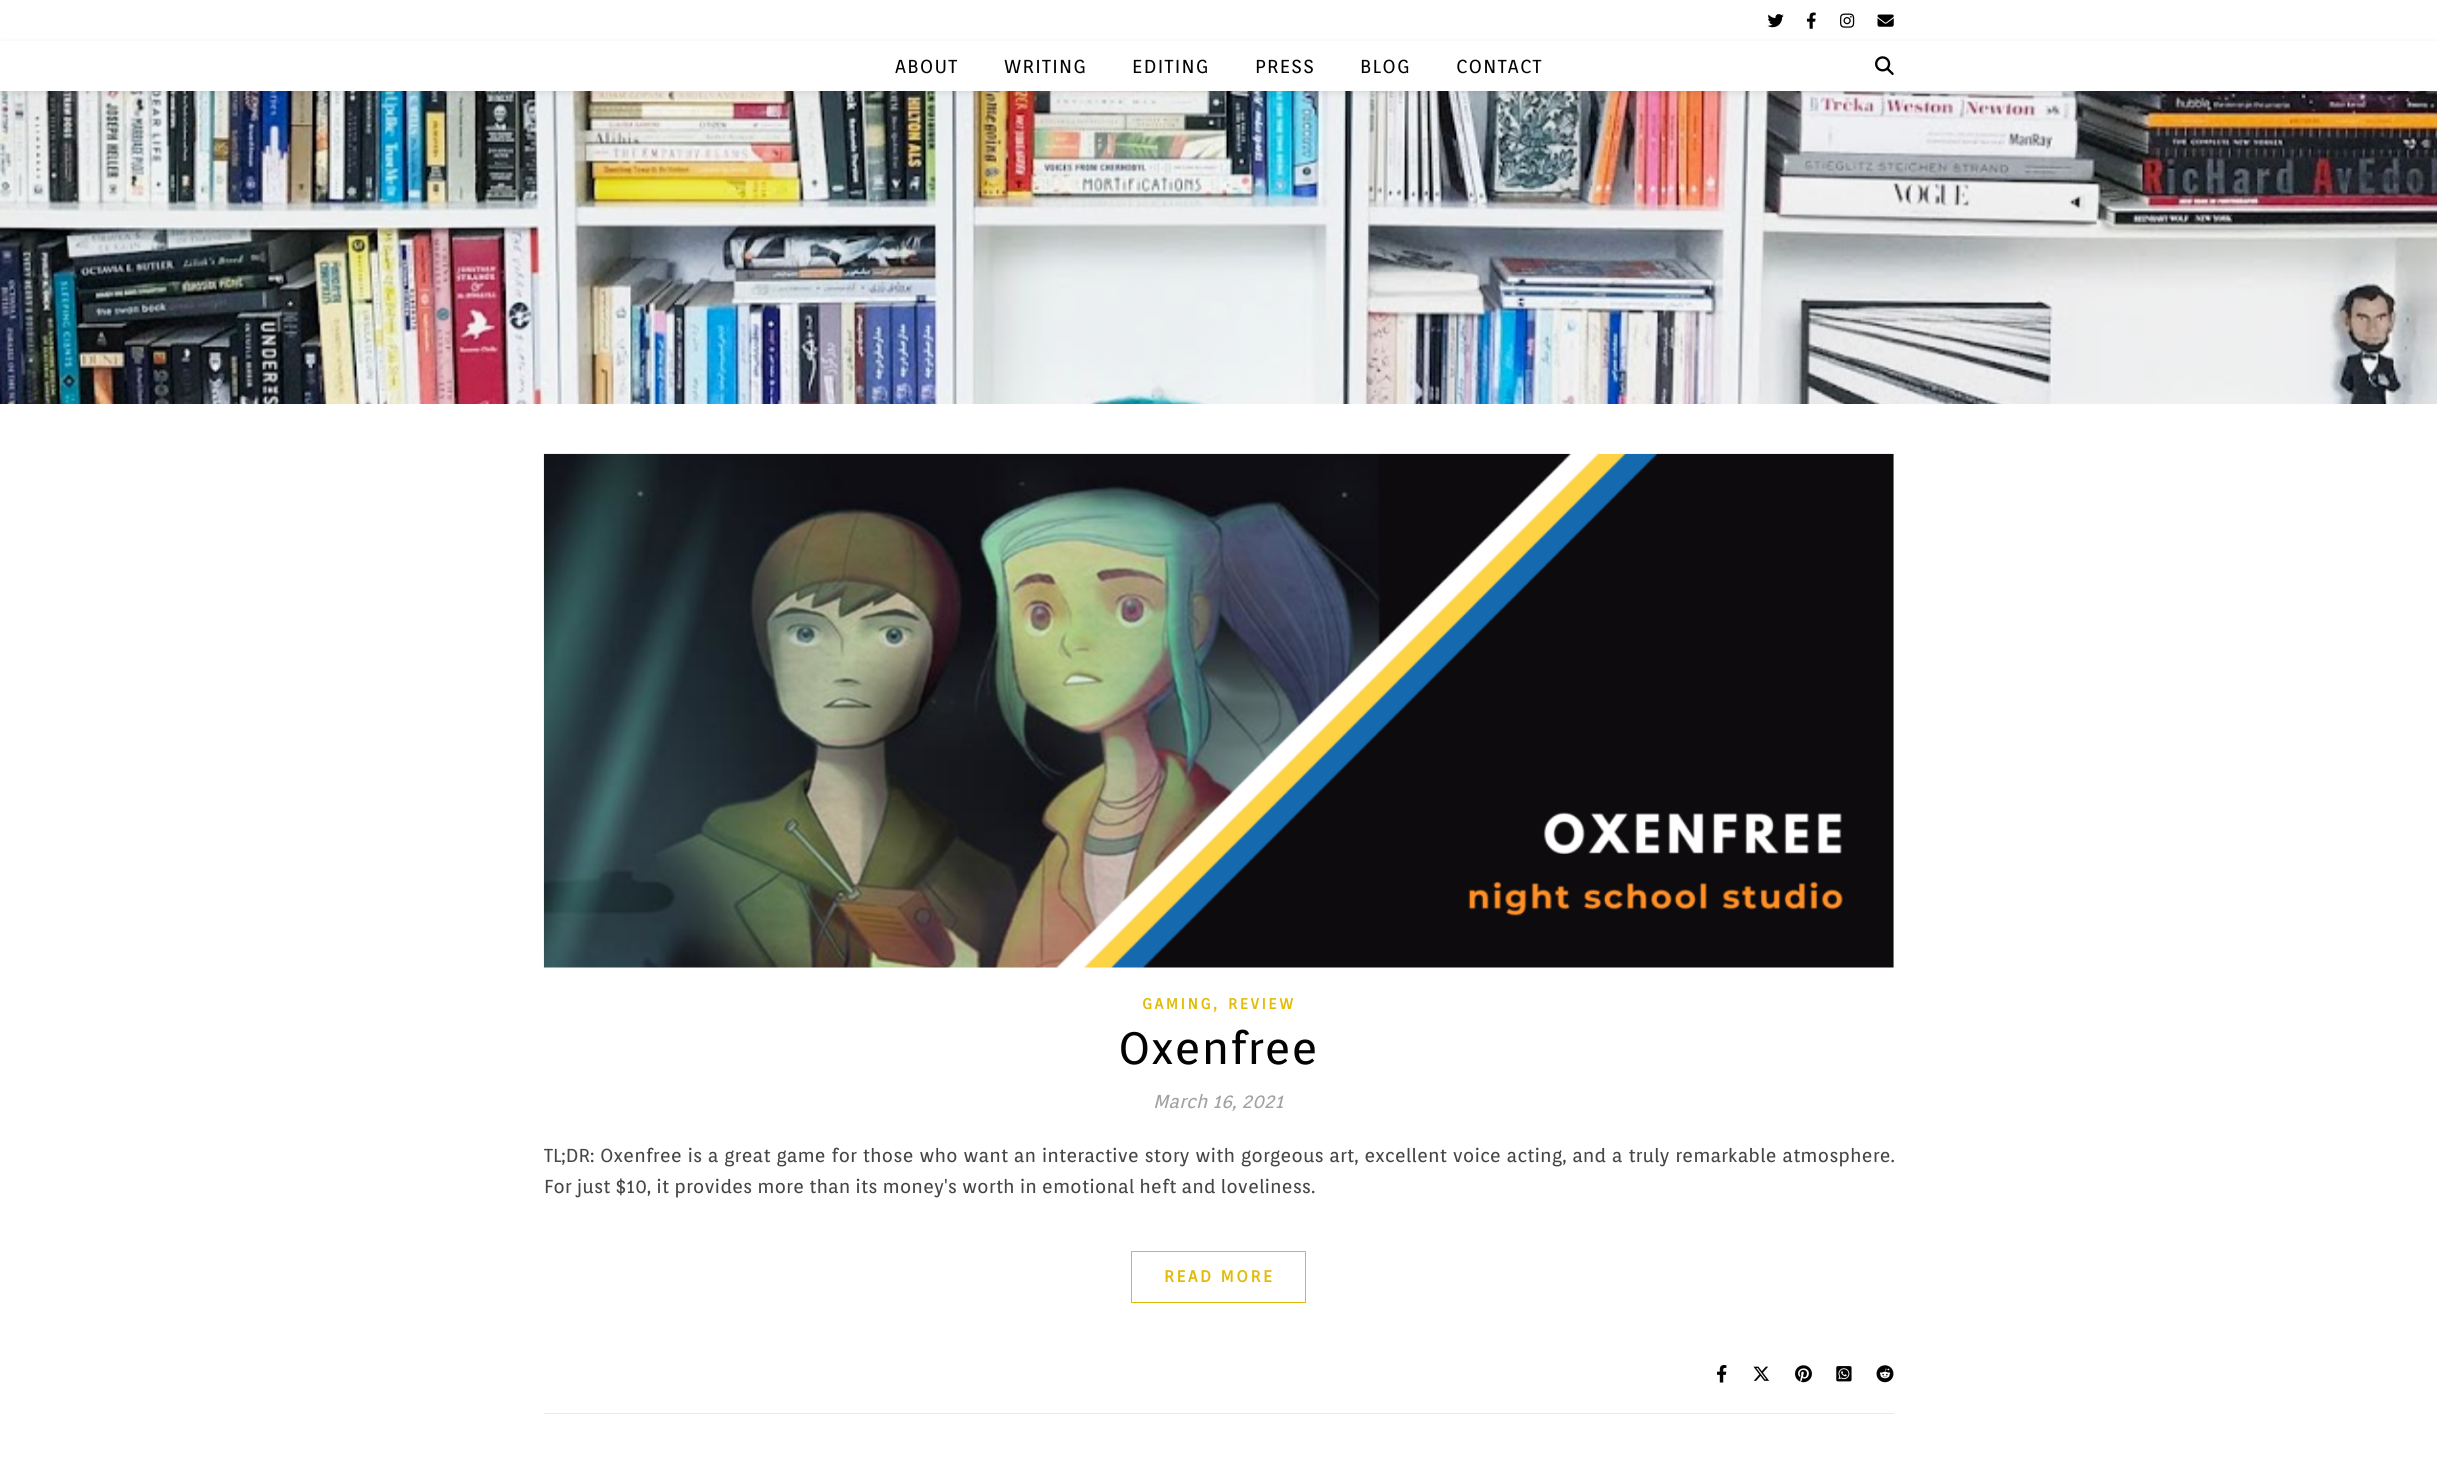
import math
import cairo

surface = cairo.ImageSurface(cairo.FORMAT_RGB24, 2437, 1471)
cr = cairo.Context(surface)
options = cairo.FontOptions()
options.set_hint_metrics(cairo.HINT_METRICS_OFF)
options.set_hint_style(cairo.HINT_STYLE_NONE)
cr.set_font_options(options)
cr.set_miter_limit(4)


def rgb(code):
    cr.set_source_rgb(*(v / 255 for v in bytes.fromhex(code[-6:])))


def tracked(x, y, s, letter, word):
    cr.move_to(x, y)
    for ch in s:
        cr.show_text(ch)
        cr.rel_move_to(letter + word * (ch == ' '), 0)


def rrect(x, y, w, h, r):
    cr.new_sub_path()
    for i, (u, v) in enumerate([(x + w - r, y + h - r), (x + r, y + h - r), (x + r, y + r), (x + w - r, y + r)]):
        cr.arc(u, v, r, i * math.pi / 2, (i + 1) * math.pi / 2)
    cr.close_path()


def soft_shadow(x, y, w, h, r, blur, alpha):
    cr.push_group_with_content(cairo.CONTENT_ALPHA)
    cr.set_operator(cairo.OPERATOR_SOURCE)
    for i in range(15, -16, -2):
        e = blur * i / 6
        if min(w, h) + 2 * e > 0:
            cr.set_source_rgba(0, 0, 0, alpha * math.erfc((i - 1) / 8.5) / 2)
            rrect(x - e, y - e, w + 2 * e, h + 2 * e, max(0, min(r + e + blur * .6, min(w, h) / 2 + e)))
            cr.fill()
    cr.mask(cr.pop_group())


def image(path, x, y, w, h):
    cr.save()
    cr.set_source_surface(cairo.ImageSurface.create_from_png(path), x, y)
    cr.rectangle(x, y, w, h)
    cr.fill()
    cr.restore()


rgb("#ffffff")
cr.paint()
image("img/1.png", 1767, 14, 17, 14)
image("img/2.png", 1806, 12, 10, 17)
image("img/3.png", 1840, 13, 15, 15)
image("img/4.png", 1877, 14, 17, 13)
image("img/12.png", 0, 91, 2437, 313)
rgb("#000000")
soft_shadow(0, 43, 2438, 50, 0, 3, 0.1)
rgb("#ffffff")
cr.rectangle(0, 41, 2437, 50)
cr.fill()
image("img/5.png", 1875, 56, 19, 19)
image("img/6.png", 543, 453, 1351, 515)
cr.rectangle(1131.5, 1251.5, 174, 51)
rgb("#e2bb09")
cr.set_line_width(1)
cr.stroke()
rgb("#e8e8e8")
cr.rectangle(544, 1413, 1350, 1)
cr.fill()
image("img/7.png", 1717, 1365, 10, 18)
image("img/8.png", 1753, 1366, 16, 15)
image("img/9.png", 1795, 1365, 17, 18)
image("img/10.png", 1836, 1366, 16, 16)
image("img/11.png", 1876, 1365, 18, 18)
cr.select_font_face("Orienta")
cr.set_font_size(18.75)
rgb("#030303")
for x, y, s in [
    (895, 73, "ABOUT"),
    (1004, 73, "WRITING"),
    (1132, 73, "EDITING"),
    (1255, 73, "PRESS"),
    (1360, 73, "BLOG"),
    (1456, 73, "CONTACT"),
]:
    tracked(x, y, s, 1.25, 0)
cr.select_font_face("Orienta", cairo.FONT_SLANT_NORMAL, cairo.FONT_WEIGHT_BOLD)
cr.set_font_size(15)
rgb("#e2bb09")
tracked(1142, 1009, "GAMING", 2.5, 0)
cr.select_font_face("Orienta")
cr.set_font_size(18.75)
cr.move_to(1213, 1009)
cr.show_text(",")
cr.select_font_face("Orienta", cairo.FONT_SLANT_NORMAL, cairo.FONT_WEIGHT_BOLD)
cr.set_font_size(15)
tracked(1228, 1009, "REVIEW", 2.5, 0)
cr.select_font_face("Orienta")
cr.set_font_size(45)
rgb("#030303")
tracked(1118, 1064, "Oxenfree", 0.5, 0)
cr.select_font_face("Orienta", cairo.FONT_SLANT_ITALIC)
cr.set_font_size(18.75)
rgb("#a1a1a1")
cr.move_to(1153, 1108)
cr.show_text("March 16, 2021")
cr.select_font_face("Orienta")
rgb("#464646")
tracked(544, 1162, "TL;DR: Oxenfree is a great game for those who want an interactive story with gorgeous art, excellent voice acting, and a truly remarkable atmosphere.", 0, 0.6)
cr.move_to(544, 1193)
cr.show_text("For just $10, it provides more than its money's worth in emotional heft and loveliness.")
cr.select_font_face("Orienta", cairo.FONT_SLANT_NORMAL, cairo.FONT_WEIGHT_BOLD)
cr.set_font_size(16.25)
rgb("#e2bb09")
tracked(1164, 1282, "READ MORE", 2.5, 0)
surface.write_to_png("page.png")
